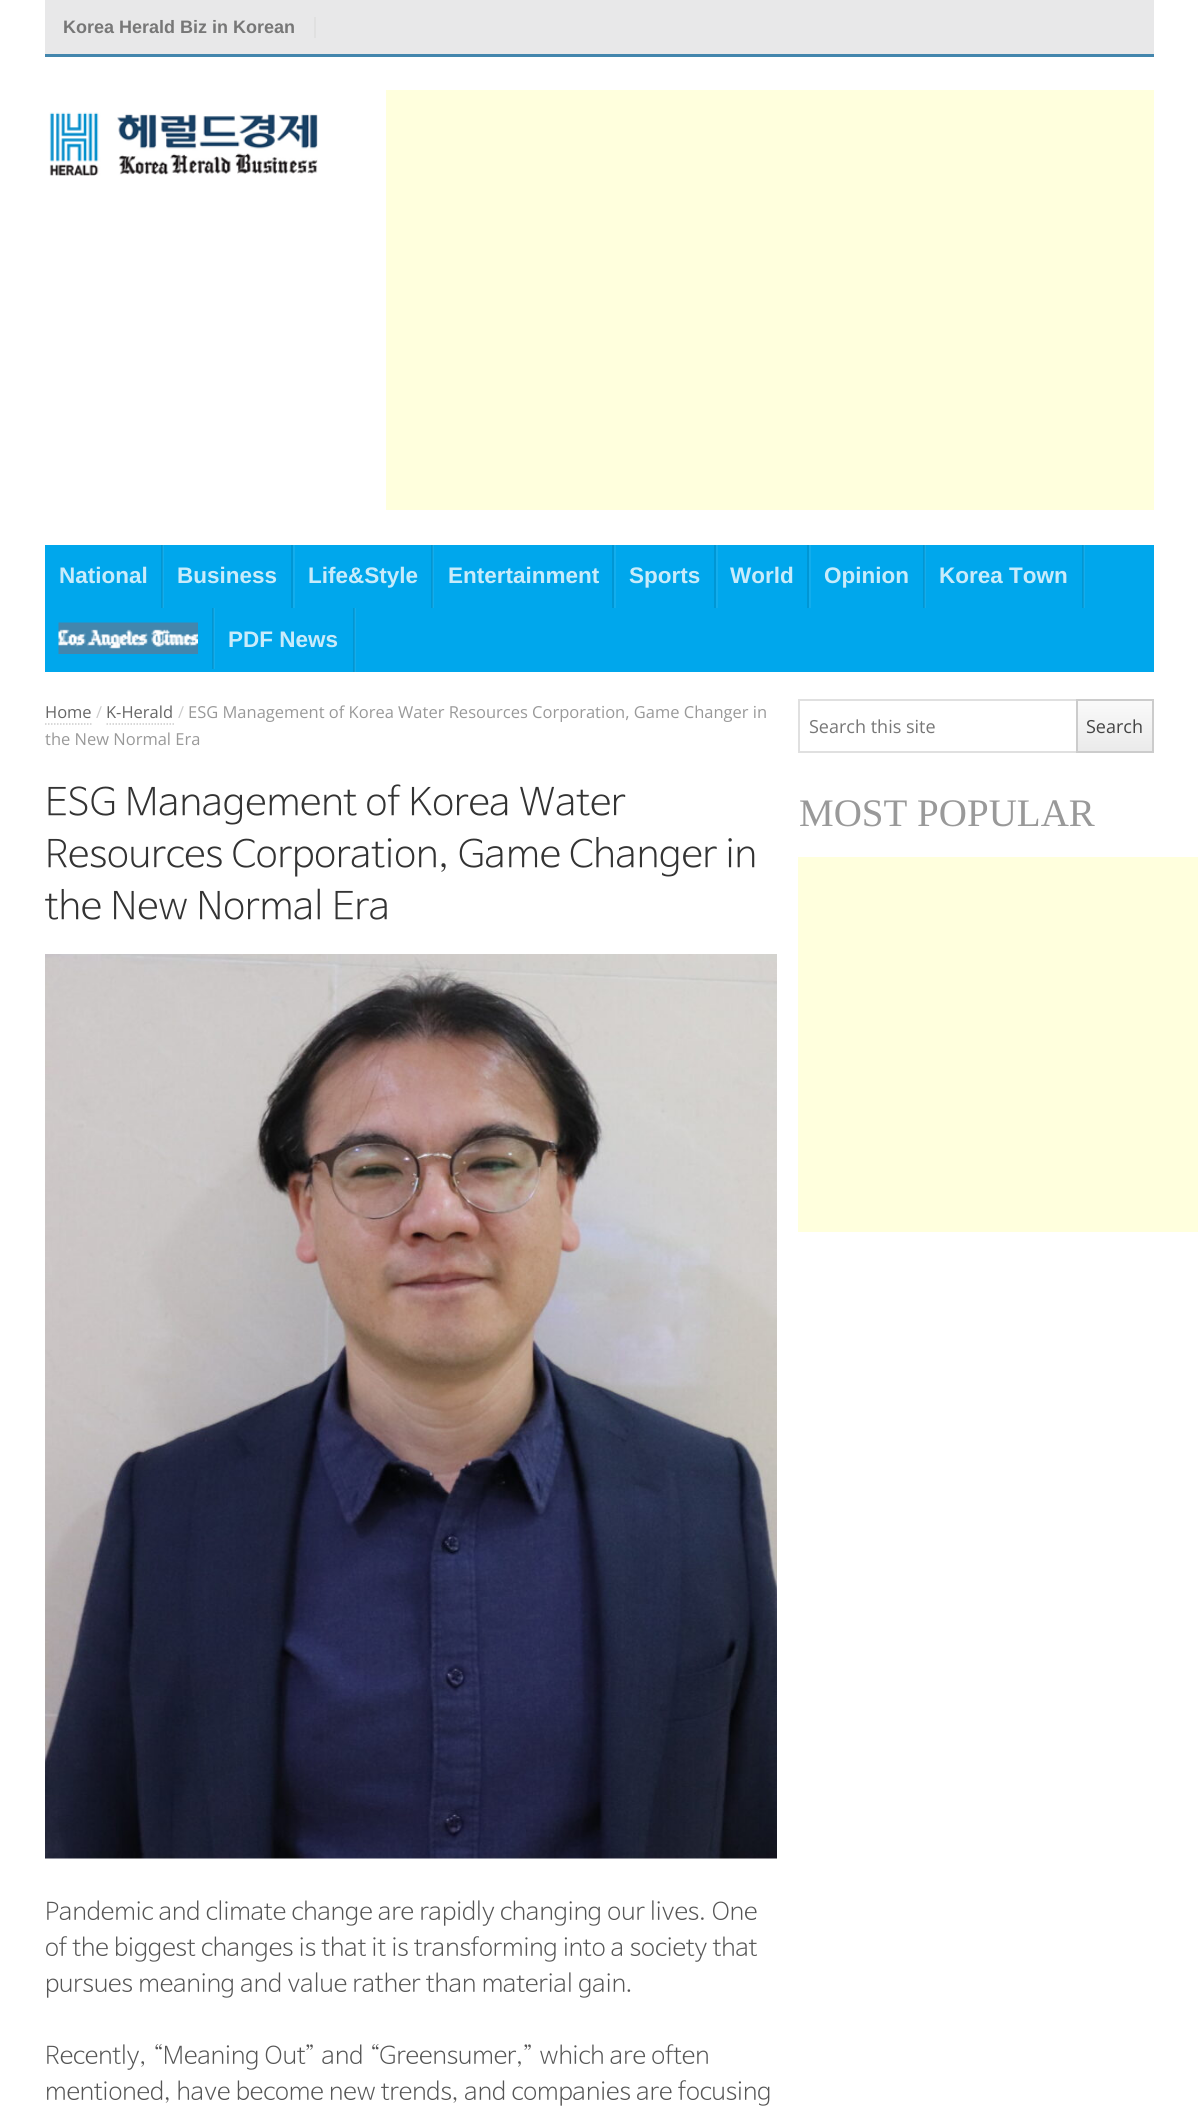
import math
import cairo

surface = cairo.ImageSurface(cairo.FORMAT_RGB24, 1198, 2125)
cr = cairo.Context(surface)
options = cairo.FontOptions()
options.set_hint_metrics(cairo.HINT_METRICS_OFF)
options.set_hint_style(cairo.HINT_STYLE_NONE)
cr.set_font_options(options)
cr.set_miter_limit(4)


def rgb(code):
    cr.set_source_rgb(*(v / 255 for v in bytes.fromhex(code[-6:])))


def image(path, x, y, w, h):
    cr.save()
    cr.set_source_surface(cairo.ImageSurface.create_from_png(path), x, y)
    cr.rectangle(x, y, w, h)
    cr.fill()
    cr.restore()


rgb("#ffffff")
cr.paint()
for x, y, w, h, color in [
    (45, 0, 1109, 54, "#e8e8e9"),
    (45, 54, 1109, 3, "#4386ad"),
    (314, 17, 2, 21, "#e0e0e0"),
]:
    rgb(color)
    cr.rectangle(x, y, w, h)
    cr.fill()
image("img/1.png", 49, 112, 269, 64)
for x, y, w, h, color in [
    (386, 90, 768, 420, "#ffffdd"),
    (45, 545, 1109, 127, "#00a7ec"),
    (353, 608, 1, 64, "#0096d4"),
    (212, 608, 1, 61, "#0096d4"),
    (1082, 545, 1, 63, "#0096d4"),
    (923, 545, 1, 63, "#0096d4"),
    (431, 545, 1, 63, "#0096d4"),
    (161, 545, 1, 63, "#0096d4"),
    (163, 545, 1, 63, "#12aded"),
    (162, 545, 1, 63, "#109cd5"),
    (293, 545, 2, 63, "#12aded"),
    (291, 545, 2, 63, "#0096d4"),
    (433, 545, 1, 63, "#12aded"),
    (432, 545, 1, 63, "#109cd5"),
    (614, 545, 2, 63, "#12aded"),
    (612, 545, 2, 63, "#0096d4"),
    (716, 545, 2, 63, "#12aded"),
    (714, 545, 2, 63, "#0096d4"),
    (809, 545, 2, 63, "#12aded"),
    (807, 545, 2, 63, "#0096d4"),
    (925, 545, 1, 63, "#12aded"),
    (924, 545, 1, 63, "#109cd5"),
    (1084, 545, 1, 63, "#12aded"),
    (1083, 545, 1, 63, "#109cd5"),
    (214, 608, 1, 61, "#12aded"),
    (213, 608, 1, 61, "#109cd5"),
]:
    rgb(color)
    cr.rectangle(x, y, w, h)
    cr.fill()
image("img/2.png", 58, 622, 140, 32)
rgb("#12aded")
cr.rectangle(355, 608, 1, 64)
cr.fill()
rgb("#109cd5")
cr.rectangle(354, 608, 1, 64)
cr.fill()
cr.new_path()
cr.move_to(45, 724)
cr.line_to(91.5, 724)
rgb("#cccccc")
cr.set_line_width(1.5)
cr.set_dash([1.5, 1.5])
cr.stroke()
cr.new_path()
cr.move_to(106.5, 724)
cr.line_to(174, 724)
cr.stroke()
image("img/3.png", 45, 954, 732, 905)
cr.rectangle(799, 700, 354, 52)
rgb("#e0e0e0")
cr.set_line_width(2)
cr.set_dash([])
cr.stroke()
gradient = cairo.LinearGradient(1115, 701, 1115, 752)
gradient.add_color_stop_rgba(0, 0.98, 0.98, 0.98, 1)
gradient.add_color_stop_rgba(1, 0.918, 0.918, 0.918, 1)
cr.set_source(gradient)
cr.rectangle(1078, 701, 74, 50)
cr.fill()
cr.rectangle(1077, 700, 76, 52)
rgb("#cccccc")
cr.stroke()
rgb("#ffffdd")
cr.rectangle(798, 857, 400, 375)
cr.fill()
cr.select_font_face("Liberation Sans", cairo.FONT_SLANT_NORMAL, cairo.FONT_WEIGHT_BOLD)
cr.set_font_size(18)
rgb("#777777")
cr.move_to(63, 33)
cr.show_text("Korea Herald Biz in Korean")
cr.set_font_size(22.5)
rgb("#c8ebfa")
for x, y, s in [
    (59, 583, "National"),
    (177, 583, "Business"),
    (308, 583, "Life&Style"),
    (448, 583, "Entertainment"),
    (629, 583, "Sports"),
    (730, 583, "World"),
    (824, 583, "Opinion"),
    (939, 583, "Korea Town"),
    (228, 647, "PDF News"),
]:
    cr.move_to(x, y)
    cr.show_text(s)
cr.select_font_face("Open Sans")
cr.set_font_size(16.5)
rgb("#666666")
cr.move_to(45, 718)
cr.show_text("Home")
rgb("#cccccc")
cr.move_to(96, 718)
cr.show_text("/")
rgb("#666666")
cr.move_to(106, 718)
cr.show_text("K-Herald")
rgb("#cccccc")
cr.move_to(178, 718)
cr.show_text("/")
rgb("#999999")
cr.move_to(188, 718)
cr.show_text("ESG Management of Korea Water Resources Corporation, Game Changer in")
cr.move_to(45, 745)
cr.show_text("the New Normal Era")
cr.select_font_face("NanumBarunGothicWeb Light")
cr.set_font_size(37.75)
rgb("#333333")
for x, y, s in [
    (45, 814, "ESG Management of Korea Water"),
    (45, 866, "Resources Corporation, Game Changer in"),
    (45, 918, "the New Normal Era"),
]:
    cr.move_to(x, y)
    cr.show_text(s)
cr.set_font_size(24)
rgb("#555555")
for x, y, s in [
    (45, 1919, "Pandemic and climate change are rapidly changing our lives. One"),
    (45, 1955, "of the biggest changes is that it is transforming into a society that"),
    (45, 1991, "pursues meaning and value rather than material gain."),
    (45, 2063, "Recently, “Meaning Out” and “Greensumer,” which are often"),
    (45, 2099, "mentioned, have become new trends, and companies are focusing"),
]:
    cr.move_to(x, y)
    cr.show_text(s)
cr.select_font_face("Open Sans")
cr.set_font_size(18)
rgb("#777777")
cr.move_to(809, 733)
cr.show_text("Search this site")
rgb("#444444")
cr.move_to(1086, 733)
cr.show_text("Search")
cr.select_font_face("Liberation Serif")
cr.set_font_size(39)
rgb("#999999")
cr.move_to(799, 826)
cr.show_text("MOST POPULAR")
surface.write_to_png("page.png")
